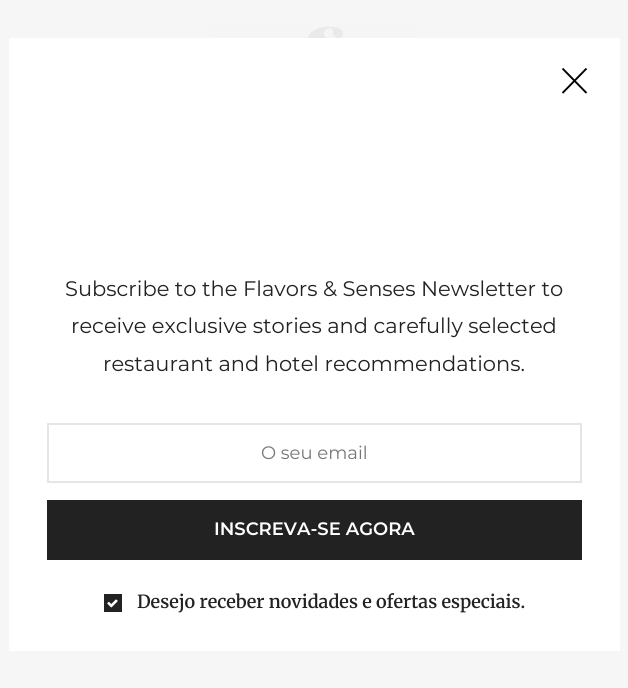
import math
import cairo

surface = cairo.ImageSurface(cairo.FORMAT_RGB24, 628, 688)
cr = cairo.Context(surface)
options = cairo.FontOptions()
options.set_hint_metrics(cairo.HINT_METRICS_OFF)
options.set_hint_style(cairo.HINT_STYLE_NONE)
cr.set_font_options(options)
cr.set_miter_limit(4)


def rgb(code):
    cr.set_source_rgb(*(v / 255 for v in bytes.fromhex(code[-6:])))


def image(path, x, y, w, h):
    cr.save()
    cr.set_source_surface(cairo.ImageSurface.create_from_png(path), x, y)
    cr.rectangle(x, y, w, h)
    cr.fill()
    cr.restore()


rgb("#f6f6f6")
cr.paint()
image("img/1.png", 210, 26, 208, 12)
rgb("#ffffff")
cr.rectangle(9, 38, 611, 613)
cr.fill()
cr.new_path()
cr.move_to(562.5, 68.5)
cr.line_to(586.5, 93)
cr.move_to(562.5, 93)
cr.line_to(586.5, 68.5)
rgb("#000000")
cr.set_line_width(1.9)
cr.stroke()
cr.rectangle(48, 424, 533, 58)
rgb("#e5e5e5")
cr.set_line_width(2)
cr.stroke()
rgb("#222222")
cr.rectangle(47, 500, 535, 60)
cr.fill()
cr.rectangle(104, 594, 18, 18)
cr.fill()
image("img/2.png", 107, 599, 11, 9)
cr.select_font_face("Montserrat")
cr.set_font_size(21)
for x, y, s in [
    (65, 296, "Subscribe to the Flavors & Senses Newsletter to"),
    (71, 333, "receive exclusive stories and carefully selected"),
    (103, 371, "restaurant and hotel recommendations."),
]:
    cr.move_to(x, y)
    cr.show_text(s)
cr.set_font_size(18)
rgb("#767676")
cr.move_to(261, 459)
cr.show_text("O seu email")
cr.select_font_face("Montserrat SemiBold")
rgb("#ffffff")
cr.move_to(214, 535)
cr.show_text("INSCREVA-SE AGORA")
cr.select_font_face("Merriweather SemiBold")
rgb("#222222")
cr.move_to(137, 608)
cr.show_text("Desejo receber novidades e ofertas especiais.")
surface.write_to_png("page.png")
